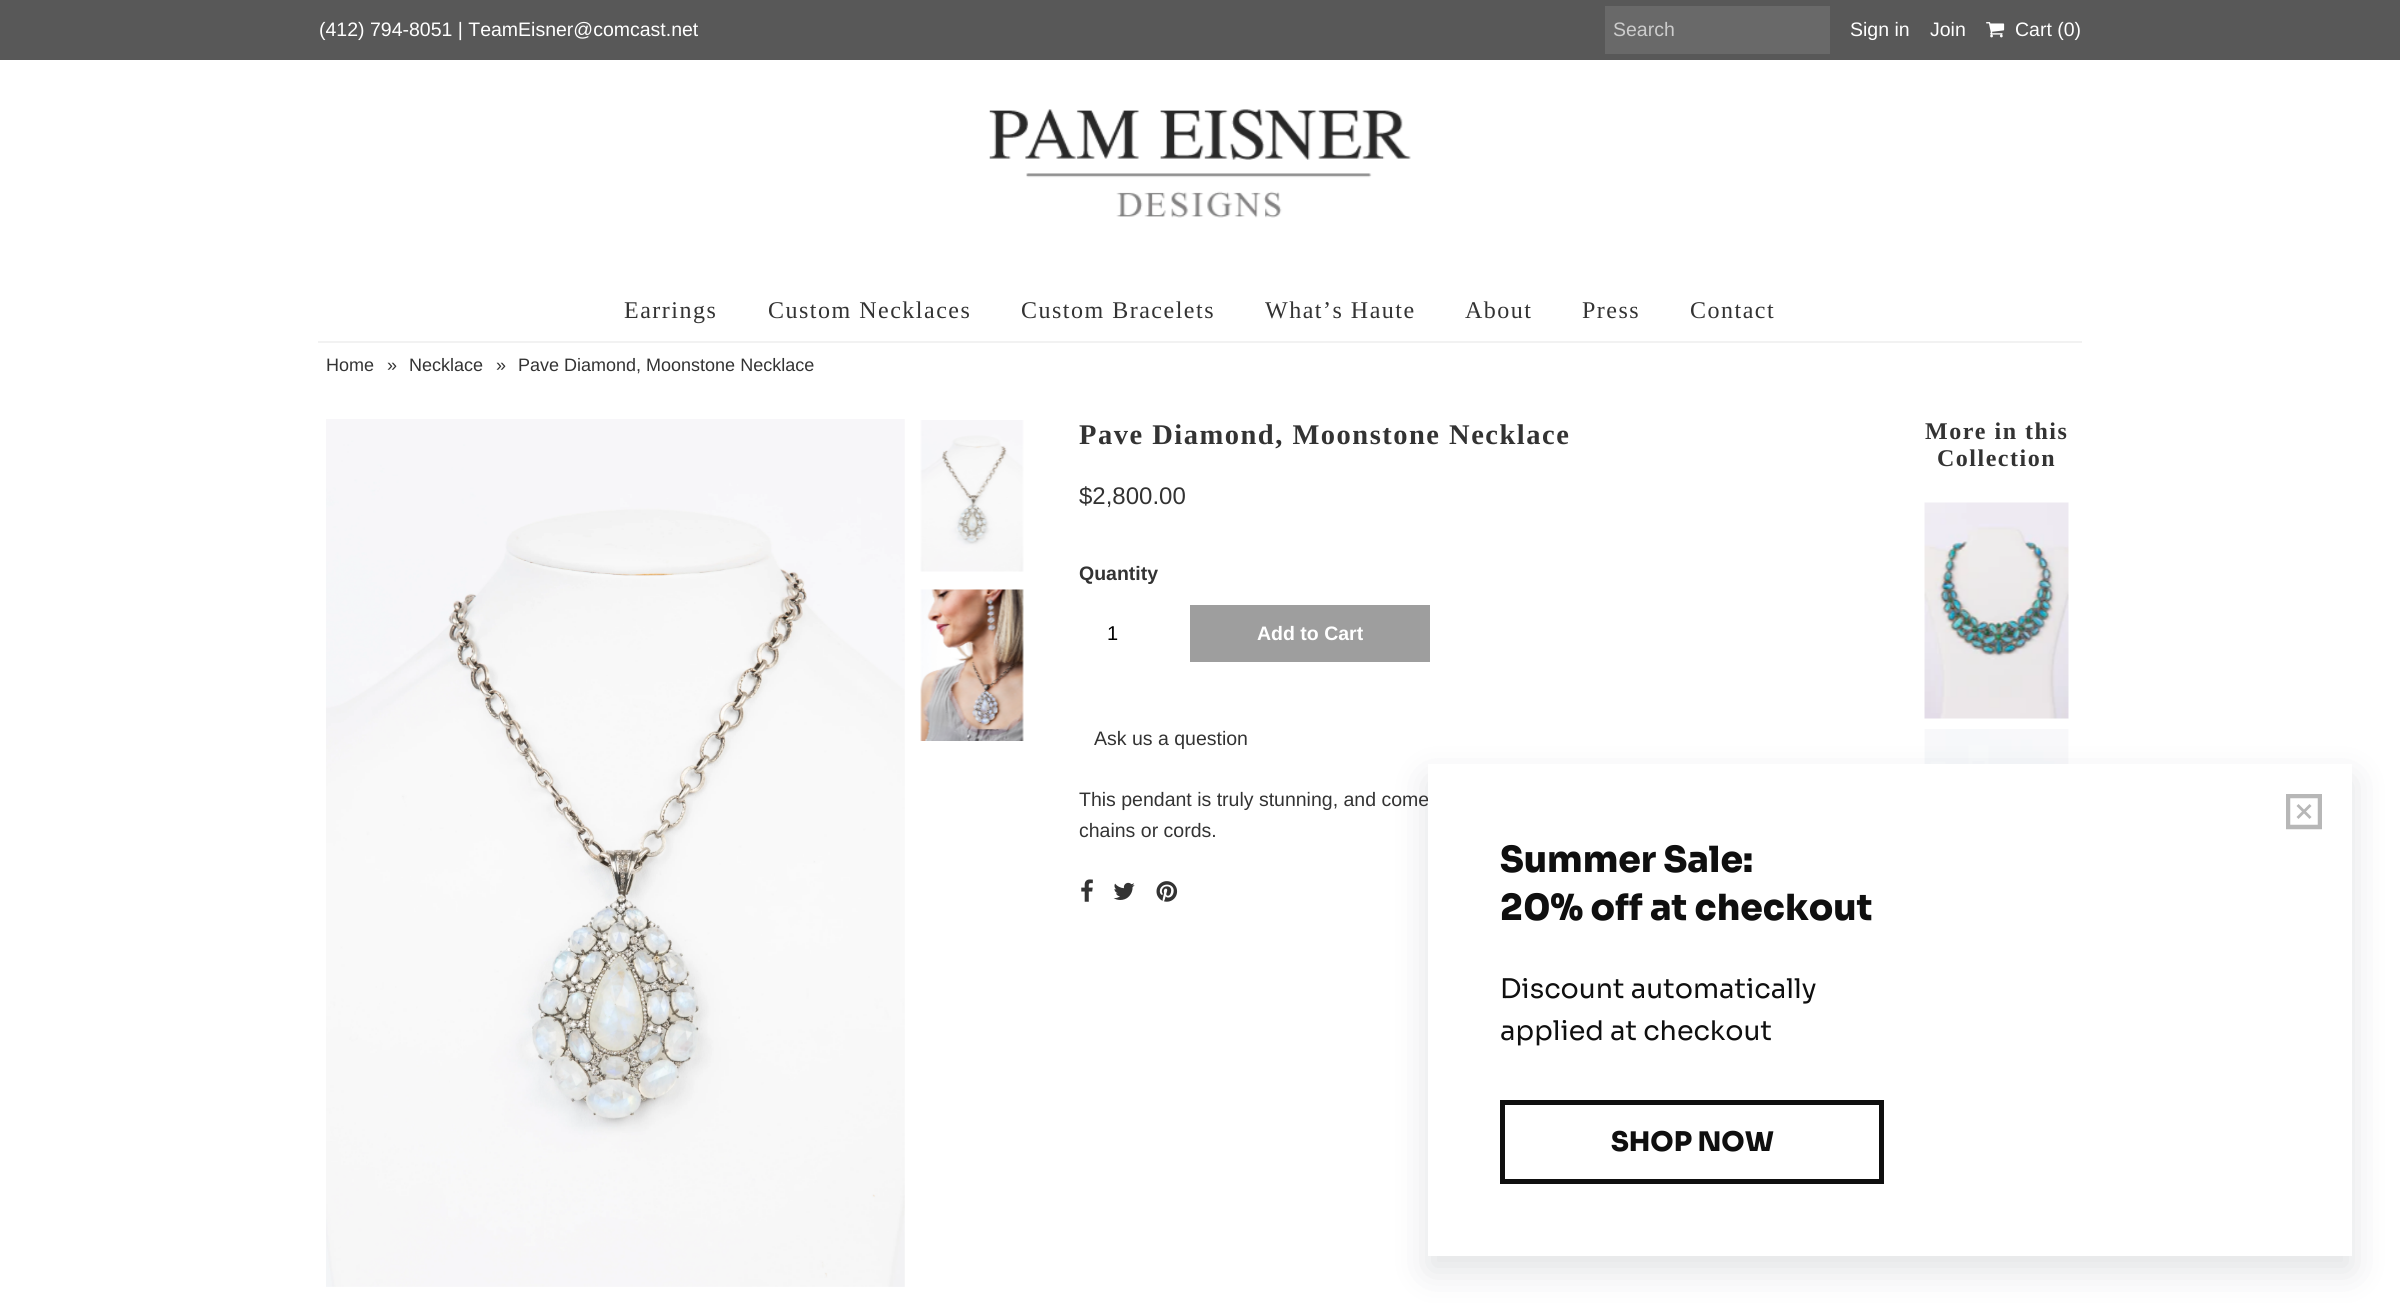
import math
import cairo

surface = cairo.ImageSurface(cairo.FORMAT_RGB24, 2400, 1303)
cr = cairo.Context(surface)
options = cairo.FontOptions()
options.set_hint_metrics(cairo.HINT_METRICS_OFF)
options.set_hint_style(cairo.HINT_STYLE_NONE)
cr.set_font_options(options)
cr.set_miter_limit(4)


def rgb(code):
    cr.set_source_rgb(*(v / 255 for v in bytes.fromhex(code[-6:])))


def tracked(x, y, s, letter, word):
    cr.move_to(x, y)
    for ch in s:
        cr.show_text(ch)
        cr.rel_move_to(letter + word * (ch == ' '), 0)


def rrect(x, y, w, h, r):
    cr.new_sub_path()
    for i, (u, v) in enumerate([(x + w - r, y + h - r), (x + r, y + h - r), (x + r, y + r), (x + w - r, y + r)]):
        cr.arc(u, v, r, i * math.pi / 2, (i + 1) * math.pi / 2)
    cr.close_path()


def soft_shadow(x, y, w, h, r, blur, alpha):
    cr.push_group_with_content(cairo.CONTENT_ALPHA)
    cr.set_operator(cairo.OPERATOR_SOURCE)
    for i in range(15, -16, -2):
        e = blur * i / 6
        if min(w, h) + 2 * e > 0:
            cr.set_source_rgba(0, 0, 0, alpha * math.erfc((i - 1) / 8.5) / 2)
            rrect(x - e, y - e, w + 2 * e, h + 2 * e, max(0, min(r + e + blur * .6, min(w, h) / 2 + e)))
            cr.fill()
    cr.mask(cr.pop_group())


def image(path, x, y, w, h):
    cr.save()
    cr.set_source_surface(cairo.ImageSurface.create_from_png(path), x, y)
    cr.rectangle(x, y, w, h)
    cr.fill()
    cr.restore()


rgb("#ffffff")
cr.paint()
rgb("#585858")
cr.rectangle(0, 0, 2400, 60)
cr.fill()
rgb("#696969")
cr.rectangle(1605, 6, 225, 48)
cr.fill()
image("img/1.png", 1986, 22, 19, 16)
image("img/2.png", 989, 109, 422, 109)
rgb("#f2f2f2")
cr.rectangle(318, 341, 1764, 2)
cr.fill()
image("img/3.png", 326, 419, 579, 868)
image("img/4.png", 920, 420, 104, 152)
image("img/5.png", 920, 589, 104, 152)
rgb("#9e9e9e")
cr.rectangle(1190, 605, 240, 57)
cr.fill()
image("img/6.png", 1081, 879, 12, 23)
image("img/7.png", 1113, 882, 22, 18)
image("img/8.png", 1156, 881, 22, 21)
image("img/9.png", 1924, 502, 145, 217)
image("img/10.png", 1924, 729, 145, 35)
rgb("#363d4d")
soft_shadow(1428, 779, 924, 492, 0, 18, 0.15)
cr.select_font_face("Liberation Sans")
cr.set_font_size(19.5)
rgb("#ffffff")
cr.move_to(319, 36)
cr.show_text("(412) 794-8051 | TeamEisner@comcast.net")
rgb("#cccccc")
cr.move_to(1613, 36)
cr.show_text("Search")
rgb("#ffffff")
for x, y, s in [
    (1850, 36, "Sign in"),
    (1930, 36, "Join"),
    (2015, 36, "Cart (0)"),
]:
    cr.move_to(x, y)
    cr.show_text(s)
cr.select_font_face("Liberation Serif")
cr.set_font_size(24)
rgb("#333333")
for x, y, s in [
    (624, 318, "Earrings"),
    (768, 318, "Custom Necklaces"),
    (1021, 318, "Custom Bracelets"),
    (1265, 318, "What’s Haute"),
    (1465, 318, "About"),
    (1582, 318, "Press"),
    (1690, 318, "Contact"),
]:
    tracked(x, y, s, 1.5, 0)
cr.select_font_face("Liberation Sans")
cr.set_font_size(18)
for x, y, s in [
    (326, 371, "Home"),
    (387, 371, "»"),
    (409, 371, "Necklace"),
    (496, 371, "»"),
    (518, 371, "Pave Diamond, Moonstone Necklace"),
]:
    cr.move_to(x, y)
    cr.show_text(s)
cr.select_font_face("Liberation Serif", cairo.FONT_SLANT_NORMAL, cairo.FONT_WEIGHT_BOLD)
cr.set_font_size(28.5)
tracked(1079, 444, "Pave Diamond, Moonstone Necklace", 1.5, 0)
cr.select_font_face("Liberation Sans")
cr.set_font_size(24)
cr.move_to(1079, 504)
cr.show_text("$2,800.00")
cr.select_font_face("Liberation Sans", cairo.FONT_SLANT_NORMAL, cairo.FONT_WEIGHT_BOLD)
cr.set_font_size(19.5)
cr.move_to(1079, 580)
cr.show_text("Quantity")
cr.select_font_face("Liberation Sans")
cr.set_font_size(20)
rgb("#000000")
cr.move_to(1107, 640)
cr.show_text("1")
cr.select_font_face("Liberation Sans", cairo.FONT_SLANT_NORMAL, cairo.FONT_WEIGHT_BOLD)
cr.set_font_size(19.5)
rgb("#ffffff")
cr.move_to(1257, 640)
cr.show_text("Add to Cart")
cr.select_font_face("Liberation Sans")
rgb("#333333")
for x, y, s in [
    (1094, 745, "Ask us a question"),
    (1079, 806, "This pendant is truly stunning, and come"),
    (1079, 837, "chains or cords."),
]:
    cr.move_to(x, y)
    cr.show_text(s)
cr.select_font_face("Liberation Serif", cairo.FONT_SLANT_NORMAL, cairo.FONT_WEIGHT_BOLD)
cr.set_font_size(24)
tracked(1925, 439, "More in this", 1.5, 0)
tracked(1937, 466, "Collection", 1.5, 0)
rgb("#ffffff")
cr.rectangle(1428, 764, 924, 492)
cr.fill()
cr.save()
cr.rectangle(2286, 794, 36, 36)
cr.clip()
cr.new_path()
cr.move_to(2320, 796)
cr.line_to(2320, 827)
cr.line_to(2288, 827)
cr.line_to(2288, 796)
cr.close_path()
rgb("#b7b7b7")
cr.set_line_width(4.5)
cr.stroke()
cr.restore()
rgb("#b7b7b7")
cr.new_path()
cr.move_to(2311.5, 806)
cr.line_to(2309.5, 804)
cr.line_to(2304, 809.5)
cr.line_to(2298.5, 804)
cr.line_to(2296.5, 806)
cr.line_to(2302, 811.5)
cr.line_to(2296.5, 817)
cr.line_to(2298.5, 819)
cr.line_to(2304, 813.5)
cr.line_to(2309.5, 819)
cr.line_to(2311.5, 817)
cr.line_to(2306, 811.5)
cr.close_path()
cr.fill()
cr.select_font_face("Sora ExtraBold")
cr.set_font_size(36)
rgb("#0f0f0f")
cr.move_to(1500, 872)
cr.show_text("Summer Sale:")
cr.move_to(1500, 920)
cr.show_text("20% off at checkout")
cr.select_font_face("Sora")
cr.set_font_size(27)
cr.move_to(1500, 998)
cr.show_text("Discount automatically")
cr.move_to(1500, 1040)
cr.show_text("applied at checkout")
cr.rectangle(1502.5, 1102.5, 379, 79)
cr.set_line_width(5)
cr.stroke()
cr.select_font_face("Sora ExtraBold")
cr.move_to(1611, 1151)
cr.show_text("SHOP NOW")
surface.write_to_png("page.png")
